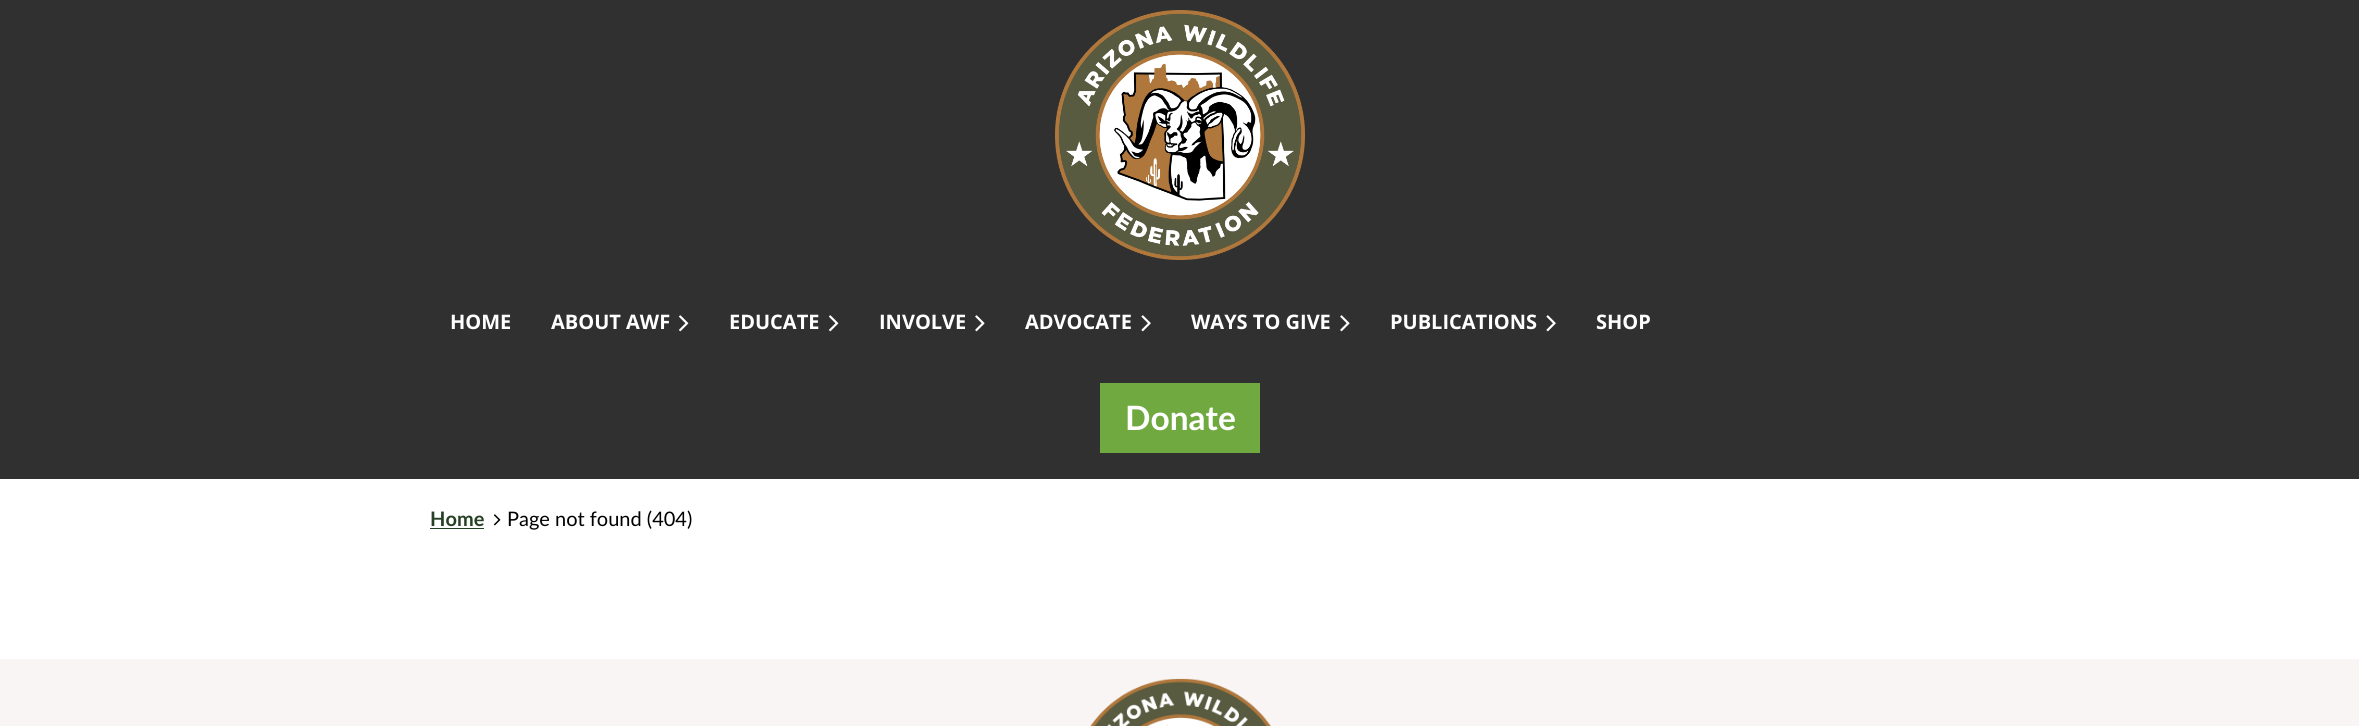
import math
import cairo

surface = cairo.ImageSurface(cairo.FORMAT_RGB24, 2359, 726)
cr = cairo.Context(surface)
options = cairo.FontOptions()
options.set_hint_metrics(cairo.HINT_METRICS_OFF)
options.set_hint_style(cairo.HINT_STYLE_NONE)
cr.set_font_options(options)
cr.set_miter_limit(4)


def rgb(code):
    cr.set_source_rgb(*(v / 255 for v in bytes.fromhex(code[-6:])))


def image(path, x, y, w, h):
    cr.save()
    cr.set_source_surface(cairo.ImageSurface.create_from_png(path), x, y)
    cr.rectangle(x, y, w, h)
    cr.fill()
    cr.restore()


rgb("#ffffff")
cr.paint()
rgb("#303030")
cr.rectangle(0, 0, 2359, 479)
cr.fill()
image("img/1.png", 1055, 10, 250, 250)
image("img/2.png", 679, 315, 10, 17)
image("img/2.png", 829, 315, 10, 17)
image("img/3.png", 975, 315, 10, 17)
image("img/4.png", 1141, 315, 10, 17)
image("img/3.png", 1340, 315, 10, 17)
image("img/4.png", 1546, 315, 10, 17)
rgb("#70a940")
cr.rectangle(1100, 383, 160, 70)
cr.fill()
rgb("#264025")
cr.rectangle(430, 528, 54, 1)
cr.fill()
image("img/5.png", 493, 514, 8, 12)
rgb("#f9f5f5")
cr.rectangle(0, 659, 2359, 67)
cr.fill()
image("img/6.png", 1090, 678, 181, 48)
cr.select_font_face("Open Sans", cairo.FONT_SLANT_NORMAL, cairo.FONT_WEIGHT_BOLD)
cr.set_font_size(20)
rgb("#ffffff")
for x, y, s in [
    (450, 329, "HOME"),
    (551, 329, "ABOUT AWF"),
    (729, 329, "EDUCATE"),
    (879, 329, "INVOLVE"),
    (1025, 329, "ADVOCATE"),
    (1191, 329, "WAYS TO GIVE"),
    (1390, 329, "PUBLICATIONS"),
    (1596, 329, "SHOP"),
]:
    cr.move_to(x, y)
    cr.show_text(s)
cr.select_font_face("Lato", cairo.FONT_SLANT_NORMAL, cairo.FONT_WEIGHT_BOLD)
cr.set_font_size(33.5)
cr.move_to(1125, 430)
cr.show_text("Donate")
cr.set_font_size(20)
rgb("#264025")
cr.move_to(430, 526)
cr.show_text("Home")
cr.select_font_face("Lato")
rgb("#000000")
cr.move_to(507, 526)
cr.show_text("Page not found (404)")
surface.write_to_png("page.png")
